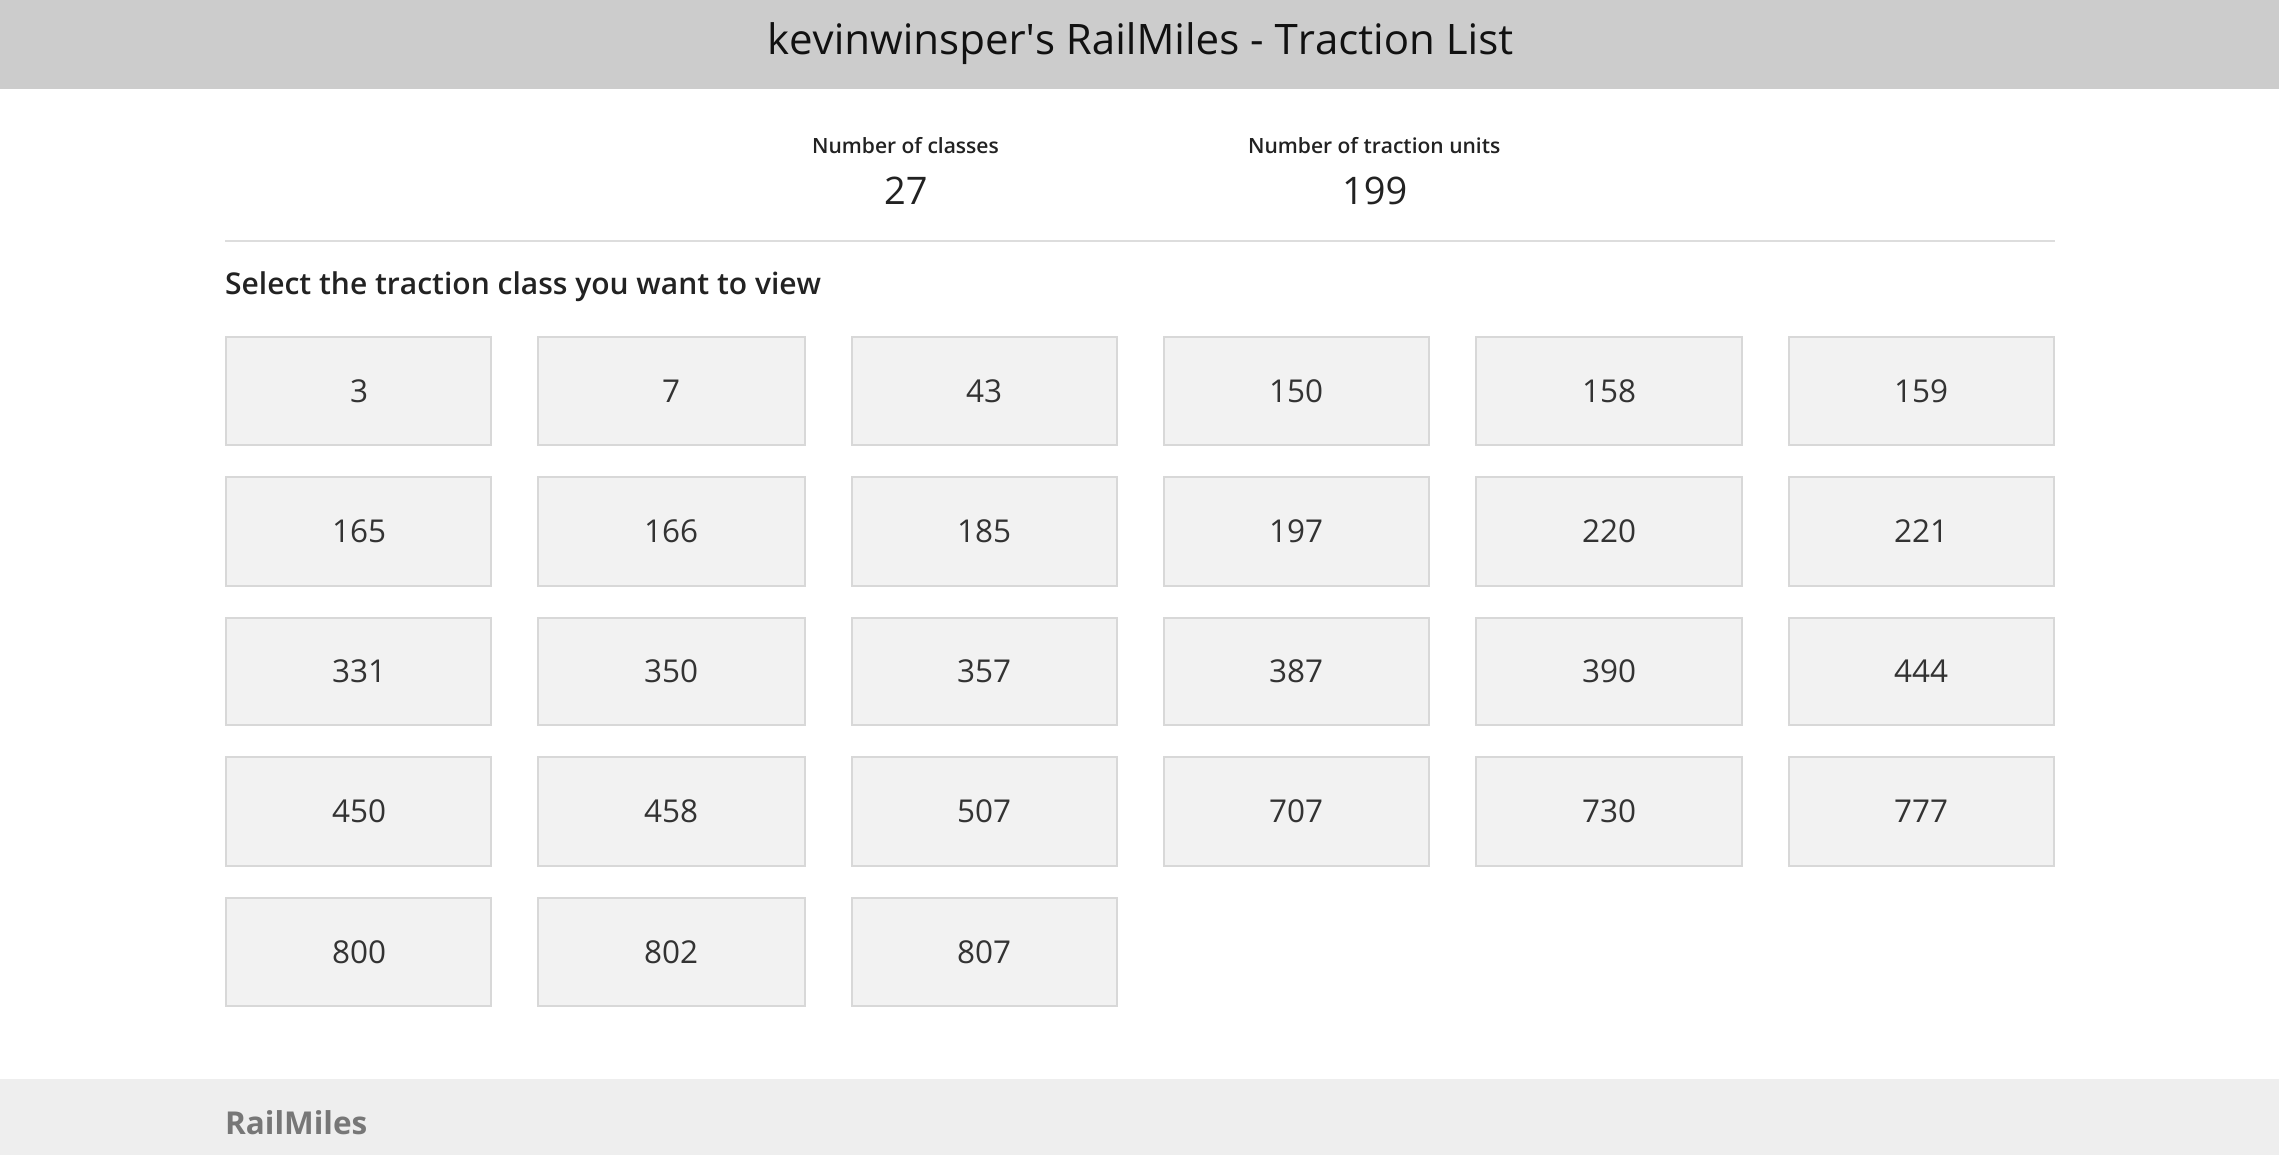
import math
import cairo

surface = cairo.ImageSurface(cairo.FORMAT_RGB24, 2279, 1155)
cr = cairo.Context(surface)
options = cairo.FontOptions()
options.set_hint_metrics(cairo.HINT_METRICS_OFF)
options.set_hint_style(cairo.HINT_STYLE_NONE)
cr.set_font_options(options)
cr.set_miter_limit(4)


def rgb(code):
    cr.set_source_rgb(*(v / 255 for v in bytes.fromhex(code[-6:])))


rgb("#ffffff")
cr.paint()
rgb("#cccccc")
cr.rectangle(0, 0, 2279, 89)
cr.fill()
rgb("#dddddd")
cr.rectangle(225, 240, 1830, 2)
cr.fill()
rgb("#f2f2f2")
cr.rectangle(226, 337, 265, 108)
cr.fill_preserve()
rgb("#d8d8d8")
cr.stroke()
rgb("#f2f2f2")
cr.rectangle(538, 337, 267, 108)
cr.fill_preserve()
rgb("#d8d8d8")
cr.stroke()
rgb("#f2f2f2")
cr.rectangle(852, 337, 265, 108)
cr.fill_preserve()
rgb("#d8d8d8")
cr.stroke()
rgb("#f2f2f2")
cr.rectangle(1164, 337, 265, 108)
cr.fill_preserve()
rgb("#d8d8d8")
cr.stroke()
rgb("#f2f2f2")
cr.rectangle(1476, 337, 266, 108)
cr.fill_preserve()
rgb("#d8d8d8")
cr.stroke()
rgb("#f2f2f2")
cr.rectangle(1789, 337, 265, 108)
cr.fill_preserve()
rgb("#d8d8d8")
cr.stroke()
rgb("#f2f2f2")
cr.rectangle(226, 477, 265, 109)
cr.fill_preserve()
rgb("#d8d8d8")
cr.stroke()
rgb("#f2f2f2")
cr.rectangle(538, 477, 267, 109)
cr.fill_preserve()
rgb("#d8d8d8")
cr.stroke()
rgb("#f2f2f2")
cr.rectangle(852, 477, 265, 109)
cr.fill_preserve()
rgb("#d8d8d8")
cr.stroke()
rgb("#f2f2f2")
cr.rectangle(1164, 477, 265, 109)
cr.fill_preserve()
rgb("#d8d8d8")
cr.stroke()
rgb("#f2f2f2")
cr.rectangle(1476, 477, 266, 109)
cr.fill_preserve()
rgb("#d8d8d8")
cr.stroke()
rgb("#f2f2f2")
cr.rectangle(1789, 477, 265, 109)
cr.fill_preserve()
rgb("#d8d8d8")
cr.stroke()
rgb("#f2f2f2")
cr.rectangle(226, 618, 265, 107)
cr.fill_preserve()
rgb("#d8d8d8")
cr.stroke()
rgb("#f2f2f2")
cr.rectangle(538, 618, 267, 107)
cr.fill_preserve()
rgb("#d8d8d8")
cr.stroke()
rgb("#f2f2f2")
cr.rectangle(852, 618, 265, 107)
cr.fill_preserve()
rgb("#d8d8d8")
cr.stroke()
rgb("#f2f2f2")
cr.rectangle(1164, 618, 265, 107)
cr.fill_preserve()
rgb("#d8d8d8")
cr.stroke()
rgb("#f2f2f2")
cr.rectangle(1476, 618, 266, 107)
cr.fill_preserve()
rgb("#d8d8d8")
cr.stroke()
rgb("#f2f2f2")
cr.rectangle(1789, 618, 265, 107)
cr.fill_preserve()
rgb("#d8d8d8")
cr.stroke()
rgb("#f2f2f2")
cr.rectangle(226, 757, 265, 109)
cr.fill_preserve()
rgb("#d8d8d8")
cr.stroke()
rgb("#f2f2f2")
cr.rectangle(538, 757, 267, 109)
cr.fill_preserve()
rgb("#d8d8d8")
cr.stroke()
rgb("#f2f2f2")
cr.rectangle(852, 757, 265, 109)
cr.fill_preserve()
rgb("#d8d8d8")
cr.stroke()
rgb("#f2f2f2")
cr.rectangle(1164, 757, 265, 109)
cr.fill_preserve()
rgb("#d8d8d8")
cr.stroke()
rgb("#f2f2f2")
cr.rectangle(1476, 757, 266, 109)
cr.fill_preserve()
rgb("#d8d8d8")
cr.stroke()
rgb("#f2f2f2")
cr.rectangle(1789, 757, 265, 109)
cr.fill_preserve()
rgb("#d8d8d8")
cr.stroke()
rgb("#f2f2f2")
cr.rectangle(226, 898, 265, 108)
cr.fill_preserve()
rgb("#d8d8d8")
cr.stroke()
rgb("#f2f2f2")
cr.rectangle(538, 898, 267, 108)
cr.fill_preserve()
rgb("#d8d8d8")
cr.stroke()
rgb("#f2f2f2")
cr.rectangle(852, 898, 265, 108)
cr.fill_preserve()
rgb("#d8d8d8")
cr.stroke()
rgb("#eeeeee")
cr.rectangle(0, 1079, 2279, 76)
cr.fill()
cr.select_font_face("Open Sans")
cr.set_font_size(42)
rgb("#111111")
cr.move_to(767, 54)
cr.show_text("kevinwinsper's RailMiles - Traction List")
cr.select_font_face("Open Sans SemiBold")
cr.set_font_size(21)
rgb("#222222")
cr.move_to(812, 153)
cr.show_text("Number of classes")
cr.select_font_face("Open Sans")
cr.set_font_size(38)
cr.move_to(884, 204)
cr.show_text("27")
cr.select_font_face("Open Sans SemiBold")
cr.set_font_size(21)
cr.move_to(1248, 153)
cr.show_text("Number of traction units")
cr.select_font_face("Open Sans")
cr.set_font_size(38)
cr.move_to(1342, 204)
cr.show_text("199")
cr.select_font_face("Open Sans SemiBold")
cr.set_font_size(30)
cr.move_to(225, 294)
cr.show_text("Select the traction class you want to view")
cr.select_font_face("Open Sans")
cr.set_font_size(31.5)
rgb("#333333")
for x, y, s in [
    (350, 402, "3"),
    (662, 402, "7"),
    (966, 402, "43"),
    (1269, 402, "150"),
    (1582, 402, "158"),
    (1894, 402, "159"),
    (332, 542, "165"),
    (644, 542, "166"),
    (957, 542, "185"),
    (1269, 542, "197"),
    (1582, 542, "220"),
    (1894, 542, "221"),
    (332, 682, "331"),
    (644, 682, "350"),
    (957, 682, "357"),
    (1269, 682, "387"),
    (1582, 682, "390"),
    (1894, 682, "444"),
    (332, 822, "450"),
    (644, 822, "458"),
    (957, 822, "507"),
    (1269, 822, "707"),
    (1582, 822, "730"),
    (1894, 822, "777"),
    (332, 963, "800"),
    (644, 963, "802"),
    (957, 963, "807"),
]:
    cr.move_to(x, y)
    cr.show_text(s)
cr.select_font_face("Open Sans", cairo.FONT_SLANT_NORMAL, cairo.FONT_WEIGHT_BOLD)
rgb("#777777")
cr.move_to(225, 1134)
cr.show_text("RailMiles")
surface.write_to_png("page.png")
